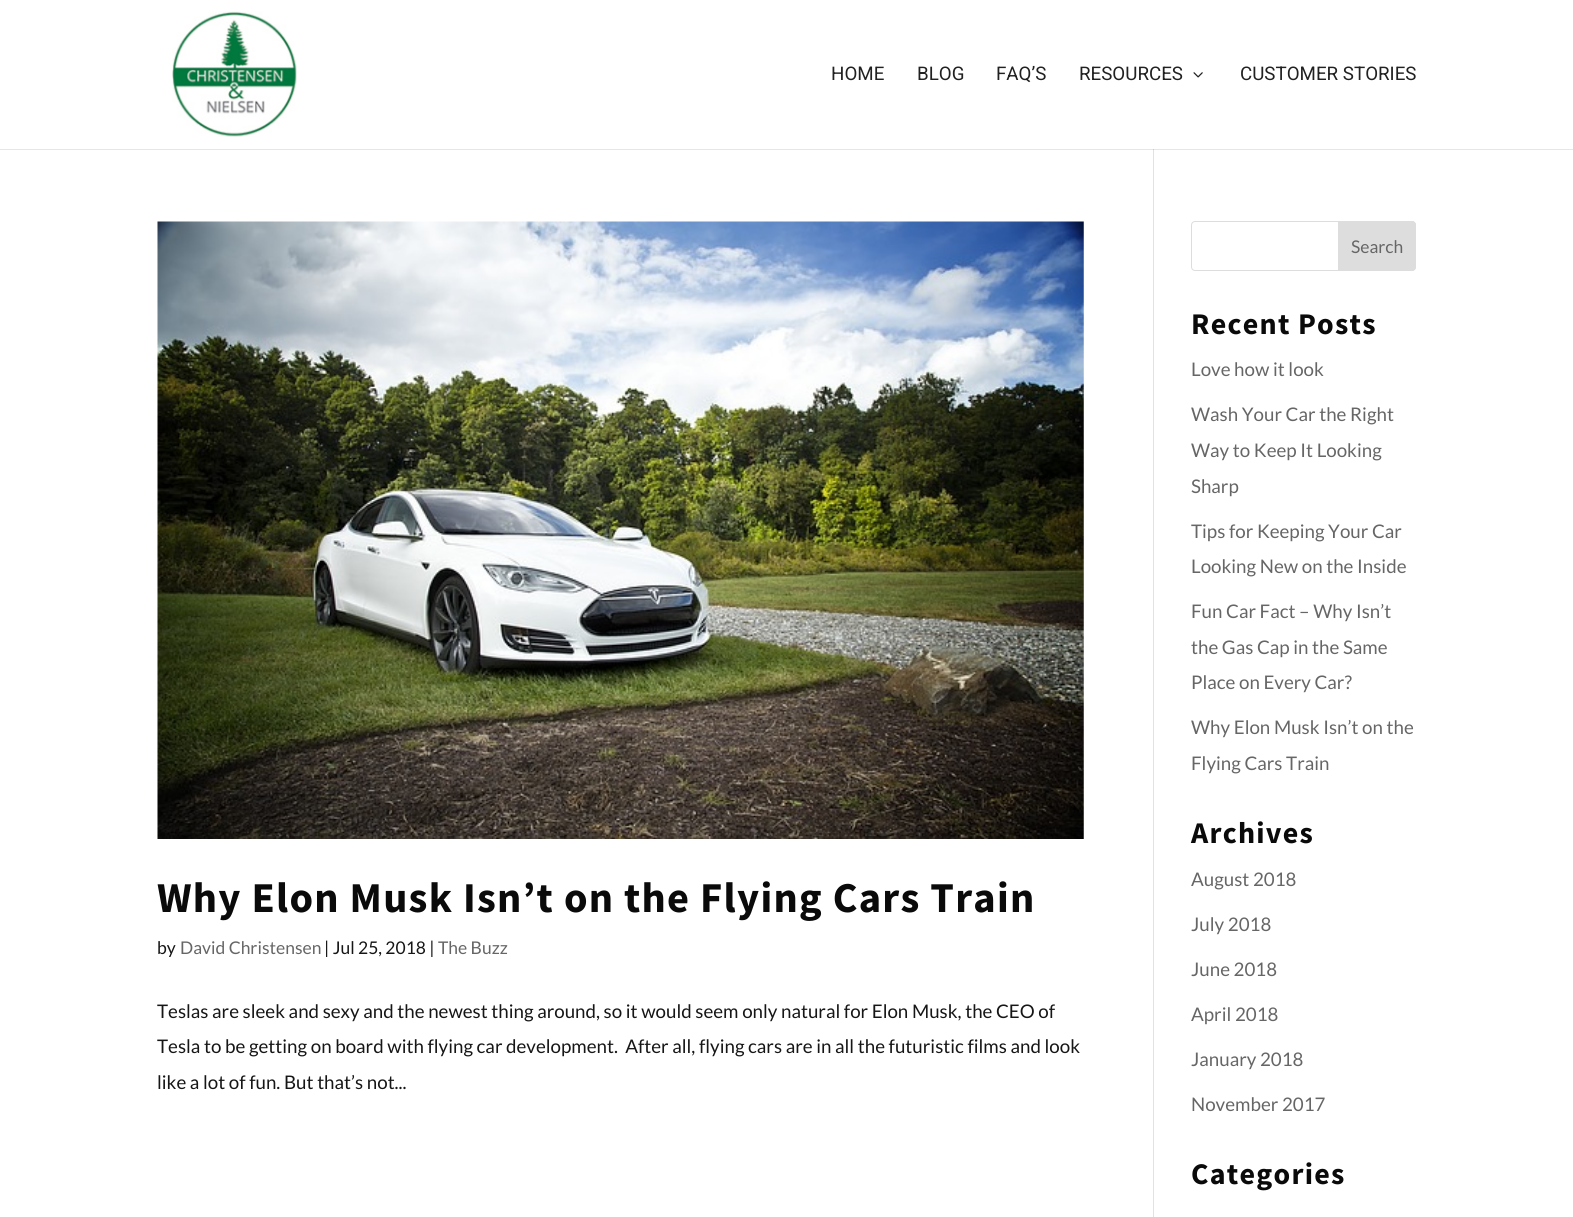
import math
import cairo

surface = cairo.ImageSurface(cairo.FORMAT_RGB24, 1573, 1217)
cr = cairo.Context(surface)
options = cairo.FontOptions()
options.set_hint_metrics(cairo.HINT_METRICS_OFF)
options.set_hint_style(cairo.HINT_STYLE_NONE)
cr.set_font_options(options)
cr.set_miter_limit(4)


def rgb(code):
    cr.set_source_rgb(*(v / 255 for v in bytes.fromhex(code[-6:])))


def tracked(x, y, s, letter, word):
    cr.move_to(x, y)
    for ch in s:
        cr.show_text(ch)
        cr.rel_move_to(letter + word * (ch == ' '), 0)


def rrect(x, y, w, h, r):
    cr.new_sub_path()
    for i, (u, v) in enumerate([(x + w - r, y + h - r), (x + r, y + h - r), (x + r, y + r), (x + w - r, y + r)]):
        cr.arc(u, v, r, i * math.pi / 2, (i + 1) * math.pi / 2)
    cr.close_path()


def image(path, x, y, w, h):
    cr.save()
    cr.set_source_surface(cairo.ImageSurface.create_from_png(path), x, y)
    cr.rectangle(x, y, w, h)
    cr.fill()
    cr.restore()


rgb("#ffffff")
cr.paint()
rgb("#e2e2e2")
cr.rectangle(1153, 149, 1, 1068)
cr.fill()
cr.set_source_rgba(0, 0, 0, 0.1)
cr.new_path()
cr.move_to(0, 149)
cr.line_to(0, 150)
cr.line_to(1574, 150)
cr.line_to(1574, 0)
cr.line_to(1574, 149)
cr.close_path()
cr.fill()
image("img/1.png", 172, 11, 125, 126)
image("img/2.png", 1193, 72, 10, 6)
image("img/3.png", 157, 221, 927, 618)
rrect(1191.5, 221.5, 224, 49, 3.5)
rgb("#dddddd")
cr.set_line_width(1)
cr.stroke()
cr.new_path()
cr.move_to(1338.5, 221.5)
cr.line_to(1412, 221.5)
cr.curve_to(1414, 221.5, 1415.5, 223, 1415.5, 225)
cr.line_to(1415.5, 267)
cr.curve_to(1415.5, 269, 1414, 270.5, 1412, 270.5)
cr.line_to(1338.5, 270.5)
cr.close_path()
cr.fill_preserve()
cr.stroke()
cr.select_font_face("Roboto")
cr.set_font_size(18.75)
rgb("#212121")
for x, y, s in [
    (831, 80, "HOME"),
    (917, 80, "BLOG"),
    (996, 80, "FAQ’S"),
    (1079, 80, "RESOURCES"),
    (1240, 80, "CUSTOMER STORIES"),
]:
    cr.move_to(x, y)
    cr.show_text(s)
cr.select_font_face("Source Sans Pro", cairo.FONT_SLANT_NORMAL, cairo.FONT_WEIGHT_BOLD)
cr.set_font_size(42.5)
rgb("#0a0a0a")
tracked(157, 912, "Why Elon Musk Isn’t on the Flying Cars Train", 1.25, 0)
cr.select_font_face("Lato")
cr.set_font_size(17.5)
rgb("#161616")
cr.move_to(157, 954)
cr.show_text("by")
rgb("#666666")
cr.move_to(180, 954)
cr.show_text("David Christensen")
rgb("#161616")
cr.move_to(324, 954)
cr.show_text("| Jul 25, 2018 |")
rgb("#666666")
cr.move_to(438, 954)
cr.show_text("The Buzz")
cr.set_font_size(18.75)
rgb("#161616")
for x, y, s in [
    (157, 1018, "Teslas are sleek and sexy and the newest thing around, so it would seem only natural for Elon Musk, the CEO of"),
    (157, 1053, "Tesla to be getting on board with flying car development.  After all, flying cars are in all the futuristic films and look"),
    (157, 1089, "like a lot of fun. But that’s not..."),
]:
    cr.move_to(x, y)
    cr.show_text(s)
cr.set_font_size(17.5)
rgb("#666666")
cr.move_to(1351, 253)
cr.show_text("Search")
cr.select_font_face("Source Sans Pro", cairo.FONT_SLANT_NORMAL, cairo.FONT_WEIGHT_BOLD)
cr.set_font_size(30)
rgb("#0a0a0a")
tracked(1191, 334, "Recent Posts", 1.25, 0)
cr.select_font_face("Lato")
cr.set_font_size(18.75)
rgb("#666666")
for x, y, s in [
    (1191, 376, "Love how it look"),
    (1191, 421, "Wash Your Car the Right"),
    (1191, 457, "Way to Keep It Looking"),
    (1191, 493, "Sharp"),
    (1191, 538, "Tips for Keeping Your Car"),
    (1191, 573, "Looking New on the Inside"),
    (1191, 618, "Fun Car Fact – Why Isn’t"),
    (1191, 654, "the Gas Cap in the Same"),
    (1191, 689, "Place on Every Car?"),
    (1191, 734, "Why Elon Musk Isn’t on the"),
    (1191, 770, "Flying Cars Train"),
]:
    cr.move_to(x, y)
    cr.show_text(s)
cr.select_font_face("Source Sans Pro", cairo.FONT_SLANT_NORMAL, cairo.FONT_WEIGHT_BOLD)
cr.set_font_size(30)
rgb("#0a0a0a")
tracked(1191, 843, "Archives", 1.25, 0)
cr.select_font_face("Lato")
cr.set_font_size(18.75)
rgb("#666666")
for x, y, s in [
    (1191, 886, "August 2018"),
    (1191, 931, "July 2018"),
    (1191, 976, "June 2018"),
    (1191, 1021, "April 2018"),
    (1191, 1066, "January 2018"),
    (1191, 1111, "November 2017"),
]:
    cr.move_to(x, y)
    cr.show_text(s)
cr.select_font_face("Source Sans Pro", cairo.FONT_SLANT_NORMAL, cairo.FONT_WEIGHT_BOLD)
cr.set_font_size(30)
rgb("#0a0a0a")
tracked(1191, 1184, "Categories", 1.25, 0)
surface.write_to_png("page.png")
